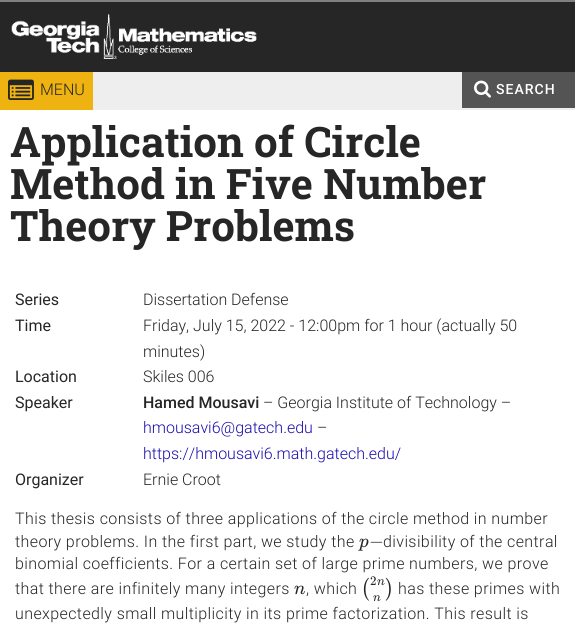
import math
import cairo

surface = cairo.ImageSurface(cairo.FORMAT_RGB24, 575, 631)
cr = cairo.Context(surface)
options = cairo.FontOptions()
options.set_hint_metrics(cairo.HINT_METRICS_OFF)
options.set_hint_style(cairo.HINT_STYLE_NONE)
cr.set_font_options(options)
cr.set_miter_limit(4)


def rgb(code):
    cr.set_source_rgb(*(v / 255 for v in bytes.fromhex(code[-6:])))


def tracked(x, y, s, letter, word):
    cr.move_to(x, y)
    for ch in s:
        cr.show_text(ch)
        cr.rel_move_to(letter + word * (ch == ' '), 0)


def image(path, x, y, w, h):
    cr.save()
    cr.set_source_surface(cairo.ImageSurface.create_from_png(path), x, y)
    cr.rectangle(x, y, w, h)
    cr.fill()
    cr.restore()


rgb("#ffffff")
cr.paint()
rgb("#262626")
cr.rectangle(0, 2, 575, 70)
cr.fill()
rgb("#808080")
cr.rectangle(0, 0, 575, 2)
cr.fill()
image("img/1.png", 11, 14, 246, 45)
rgb("#eeeeee")
cr.rectangle(93, 72, 482, 38)
cr.fill()
rgb("#eeb211")
cr.rectangle(0, 72, 93, 38)
cr.fill()
image("img/2.png", 8, 79, 26, 21)
rgb("#545454")
cr.rectangle(462, 72, 113, 36)
cr.fill()
image("img/3.png", 474, 80, 17, 18)
cr.select_font_face("Roboto Light")
cr.set_font_size(16)
rgb("#262626")
cr.move_to(40, 95)
cr.show_text("MENU")
cr.select_font_face("Roboto Medium")
cr.set_font_size(14)
rgb("#ffffff")
tracked(496, 94, "SEARCH", 1, 0)
cr.select_font_face("Roboto Slab", cairo.FONT_SLANT_NORMAL, cairo.FONT_WEIGHT_BOLD)
cr.set_font_size(42)
rgb("#262626")
for x, y, s in [
    (10, 157, "Application of Circle"),
    (10, 199, "Method in Five Number"),
    (10, 241, "Theory Problems"),
]:
    cr.move_to(x, y)
    cr.show_text(s)
cr.select_font_face("Roboto")
cr.set_font_size(16)
cr.move_to(15, 305)
cr.show_text("Series")
cr.select_font_face("Roboto Light")
cr.move_to(143, 305)
cr.show_text("Dissertation Defense")
cr.select_font_face("Roboto")
cr.move_to(15, 331)
cr.show_text("Time")
cr.select_font_face("Roboto Light")
cr.move_to(143, 331)
cr.show_text("Friday, July 15, 2022 - 12:00pm for 1 hour (actually 50")
cr.move_to(143, 357)
cr.show_text("minutes)")
cr.select_font_face("Roboto")
cr.move_to(15, 382)
cr.show_text("Location")
cr.select_font_face("Roboto Light")
cr.move_to(143, 382)
cr.show_text("Skiles 006")
cr.select_font_face("Roboto")
cr.move_to(15, 408)
cr.show_text("Speaker")
cr.select_font_face("Roboto Medium")
cr.move_to(143, 408)
cr.show_text("Hamed Mousavi")
cr.select_font_face("Roboto Light")
cr.move_to(263, 408)
cr.show_text("– Georgia Institute of Technology –")
rgb("#1a0dab")
cr.move_to(143, 433)
cr.show_text("hmousavi6@gatech.edu")
rgb("#262626")
cr.move_to(317, 433)
cr.show_text("–")
rgb("#1a0dab")
cr.move_to(143, 459)
cr.show_text("https://hmousavi6.math.gatech.edu/")
cr.select_font_face("Roboto")
rgb("#262626")
cr.move_to(15, 485)
cr.show_text("Organizer")
cr.select_font_face("Roboto Light")
cr.move_to(143, 485)
cr.show_text("Ernie Croot")
tracked(15, 524, "This thesis consists of three applications of the circle method in number", 0.4, 0)
tracked(15, 547, "theory problems. In the first part, we study the", 0.4, 0)
cr.select_font_face("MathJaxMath", cairo.FONT_SLANT_ITALIC)
cr.set_font_size(19)
cr.move_to(359, 547)
cr.show_text("p")
cr.select_font_face("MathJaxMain")
cr.move_to(369, 547)
cr.show_text("−")
cr.select_font_face("Roboto Light")
cr.set_font_size(16)
for x, y, s in [
    (383, 547, "divisibility of the central"),
    (15, 569, "binomial coefficients. For a certain set of large prime numbers, we prove"),
    (15, 594, "that there are infinitely many integers"),
]:
    tracked(x, y, s, 0.4, 0)
cr.select_font_face("MathJaxMath", cairo.FONT_SLANT_ITALIC)
cr.set_font_size(19)
cr.move_to(294, 594)
cr.show_text("n")
cr.select_font_face("Roboto Light")
cr.set_font_size(16)
tracked(306, 594, ", which", 0.4, 0)
cr.select_font_face("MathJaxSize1")
cr.set_font_size(19)
cr.move_to(361, 594)
cr.show_text("(")
cr.select_font_face("MathJaxMain")
cr.set_font_size(13)
cr.move_to(370, 585)
cr.show_text("2")
cr.select_font_face("MathJaxMath", cairo.FONT_SLANT_ITALIC)
cr.move_to(377, 585)
cr.show_text("n")
cr.move_to(373, 601)
cr.show_text("n")
cr.select_font_face("MathJaxSize1")
cr.set_font_size(19)
cr.move_to(385, 594)
cr.show_text(")")
cr.select_font_face("Roboto Light")
cr.set_font_size(16)
tracked(398, 594, "has these primes with", 0.4, 0)
tracked(15, 619, "unexpectedly small multiplicity in its prime factorization. This result is", 0.4, 0)
surface.write_to_png("page.png")
